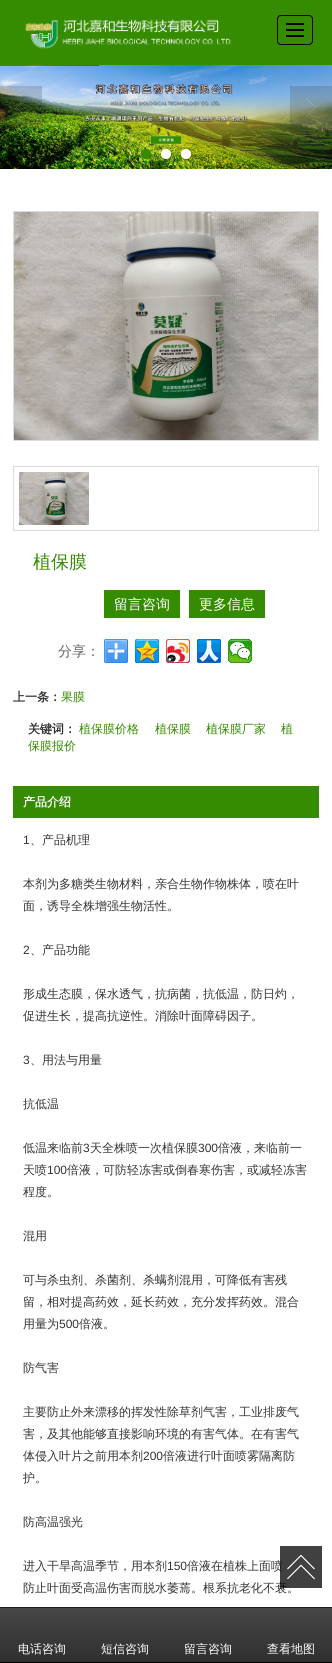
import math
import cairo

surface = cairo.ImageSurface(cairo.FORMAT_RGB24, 332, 1663)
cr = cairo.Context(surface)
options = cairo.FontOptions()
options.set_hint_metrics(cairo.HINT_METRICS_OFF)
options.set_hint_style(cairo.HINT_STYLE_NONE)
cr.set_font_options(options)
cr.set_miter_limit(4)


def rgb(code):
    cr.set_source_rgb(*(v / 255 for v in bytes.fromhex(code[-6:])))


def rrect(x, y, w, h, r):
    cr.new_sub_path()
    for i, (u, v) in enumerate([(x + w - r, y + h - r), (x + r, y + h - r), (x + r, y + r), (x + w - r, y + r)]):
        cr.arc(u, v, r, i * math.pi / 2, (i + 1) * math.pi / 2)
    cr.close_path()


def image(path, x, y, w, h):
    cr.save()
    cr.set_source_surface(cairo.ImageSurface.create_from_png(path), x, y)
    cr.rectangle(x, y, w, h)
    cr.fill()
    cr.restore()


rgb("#ffffff")
cr.paint()
rgb("#358c00")
cr.rectangle(0, 0, 332, 65)
cr.fill()
image("img/1.png", 25, 19, 207, 30)
rrect(277.5, 15.5, 35, 29, 3.5)
rgb("#000000")
cr.set_line_width(1)
cr.stroke()
for x, y, w, h, color in [
    (286, 23, 18, 2, "#000000"),
    (286, 29, 18, 2, "#000000"),
    (286, 35, 18, 2, "#000000"),
]:
    rgb(color)
    cr.rectangle(x, y, w, h)
    cr.fill()
image("img/2.png", 0, 65, 332, 104)
cr.set_source_rgba(0, 0, 0, 0.4)
cr.rectangle(0, 65, 99, 1)
cr.fill()
cr.set_source_rgba(0.224, 0.224, 0.224, 0.2)
cr.rectangle(0, 86, 42, 43)
cr.fill()
image("img/3.png", 16, 98, 10, 19)
cr.rectangle(290, 86, 42, 43)
cr.fill()
image("img/4.png", 306, 98, 10, 19)
rgb("#358c00")
cr.arc(146, 154, 5, 0, 2 * math.pi)
cr.fill()
rgb("#ffffff")
cr.arc(166, 154, 5, 0, 2 * math.pi)
cr.fill()
cr.arc(186, 154, 5, 0, 2 * math.pi)
cr.fill()
cr.rectangle(13.5, 211.5, 305, 229)
rgb("#dddddd")
cr.stroke()
image("img/5.png", 14, 212, 304, 228)
cr.rectangle(13.5, 466.5, 305, 64)
cr.stroke()
image("img/6.png", 19, 472, 70, 53)
rgb("#358c00")
cr.rectangle(104, 590, 76, 28)
cr.fill()
cr.rectangle(189, 590, 76, 28)
cr.fill()
image("img/7.png", 104, 639, 24, 24)
image("img/8.png", 135, 639, 24, 24)
image("img/9.png", 166, 639, 24, 24)
image("img/10.png", 197, 639, 24, 24)
image("img/11.png", 228, 639, 24, 24)
cr.rectangle(13, 786, 306, 32)
cr.fill()
gradient = cairo.LinearGradient(166, 1608, 166, 1662)
gradient.add_color_stop_rgba(0, 0.278, 0.278, 0.278, 1)
gradient.add_color_stop_rgba(1, 0.184, 0.184, 0.184, 1)
cr.set_source(gradient)
cr.rectangle(0, 1608, 332, 54)
cr.fill()
rgb("#1d1d1d")
cr.rectangle(0, 1607, 332, 1)
cr.fill()
rgb("#000000")
cr.rectangle(0, 1662, 332, 1)
cr.fill()
cr.select_font_face("WenQuanYi Zen Hei Medium")
cr.set_font_size(18)
rgb("#358c00")
cr.move_to(33, 568)
cr.show_text("植保膜")
cr.set_font_size(14)
rgb("#ffffff")
cr.move_to(114, 609)
cr.show_text("留言咨询")
cr.move_to(199, 609)
cr.show_text("更多信息")
rgb("#666666")
cr.move_to(58, 656)
cr.show_text("分享：")
cr.select_font_face("WenQuanYi Zen Hei", cairo.FONT_SLANT_NORMAL, cairo.FONT_WEIGHT_BOLD)
cr.set_font_size(12)
rgb("#333333")
cr.move_to(13, 701)
cr.show_text("上一条：")
cr.select_font_face("WenQuanYi Zen Hei Medium")
rgb("#358c00")
cr.move_to(61, 701)
cr.show_text("果膜")
cr.select_font_face("WenQuanYi Zen Hei", cairo.FONT_SLANT_NORMAL, cairo.FONT_WEIGHT_BOLD)
rgb("#333333")
cr.move_to(28, 733)
cr.show_text("关键词：")
cr.select_font_face("WenQuanYi Zen Hei Medium")
rgb("#358c00")
for x, y, s in [
    (79, 733, "植保膜价格"),
    (155, 733, "植保膜"),
    (206, 733, "植保膜厂家"),
    (281, 733, "植"),
    (28, 750, "保膜报价"),
]:
    cr.move_to(x, y)
    cr.show_text(s)
cr.select_font_face("WenQuanYi Zen Hei", cairo.FONT_SLANT_NORMAL, cairo.FONT_WEIGHT_BOLD)
rgb("#ffffff")
cr.move_to(23, 806)
cr.show_text("产品介绍")
cr.select_font_face("Liberation Sans")
rgb("#333333")
cr.move_to(23, 844)
cr.show_text("1")
cr.select_font_face("WenQuanYi Zen Hei Medium")
for x, y, s in [
    (30, 844, "、产品机理"),
    (23, 888, "本剂为多糖类生物材料，亲合生物作物株体，喷在叶"),
    (23, 910, "面，诱导全株增强生物活性。"),
]:
    cr.move_to(x, y)
    cr.show_text(s)
cr.select_font_face("Liberation Sans")
cr.move_to(23, 954)
cr.show_text("2")
cr.select_font_face("WenQuanYi Zen Hei Medium")
for x, y, s in [
    (30, 954, "、产品功能"),
    (23, 998, "形成生态膜，保水透气，抗病菌，抗低温，防日灼，"),
    (23, 1020, "促进生长，提高抗逆性。消除叶面障碍因子。"),
]:
    cr.move_to(x, y)
    cr.show_text(s)
cr.select_font_face("Liberation Sans")
cr.move_to(23, 1064)
cr.show_text("3")
cr.select_font_face("WenQuanYi Zen Hei Medium")
for x, y, s in [
    (30, 1064, "、用法与用量"),
    (23, 1108, "抗低温"),
    (23, 1152, "低温来临前"),
]:
    cr.move_to(x, y)
    cr.show_text(s)
cr.select_font_face("Liberation Sans")
cr.move_to(83, 1152)
cr.show_text("3")
cr.select_font_face("WenQuanYi Zen Hei Medium")
cr.move_to(90, 1152)
cr.show_text("天全株喷一次植保膜")
cr.select_font_face("Liberation Sans")
cr.move_to(198, 1152)
cr.show_text("300")
cr.select_font_face("WenQuanYi Zen Hei Medium")
cr.move_to(218, 1152)
cr.show_text("倍液，来临前一")
cr.move_to(23, 1174)
cr.show_text("天喷")
cr.select_font_face("Liberation Sans")
cr.move_to(47, 1174)
cr.show_text("100")
cr.select_font_face("WenQuanYi Zen Hei Medium")
for x, y, s in [
    (67, 1174, "倍液，可防轻冻害或倒春寒伤害，或减轻冻害"),
    (23, 1196, "程度。"),
    (23, 1240, "混用"),
    (23, 1284, "可与杀虫剂、杀菌剂、杀螨剂混用，可降低有害残"),
    (23, 1306, "留，相对提高药效，延长药效，充分发挥药效。混合"),
    (23, 1328, "用量为"),
]:
    cr.move_to(x, y)
    cr.show_text(s)
cr.select_font_face("Liberation Sans")
cr.move_to(59, 1328)
cr.show_text("500")
cr.select_font_face("WenQuanYi Zen Hei Medium")
for x, y, s in [
    (79, 1328, "倍液。"),
    (23, 1372, "防气害"),
    (23, 1416, "主要防止外来漂移的挥发性除草剂气害，工业排废气"),
    (23, 1438, "害，及其他能够直接影响环境的有害气体。在有害气"),
    (23, 1460, "体侵入叶片之前用本剂"),
]:
    cr.move_to(x, y)
    cr.show_text(s)
cr.select_font_face("Liberation Sans")
cr.move_to(143, 1460)
cr.show_text("200")
cr.select_font_face("WenQuanYi Zen Hei Medium")
for x, y, s in [
    (163, 1460, "倍液进行叶面喷雾隔离防"),
    (23, 1482, "护。"),
    (23, 1526, "防高温强光"),
    (23, 1570, "进入干旱高温季节，用本剂"),
]:
    cr.move_to(x, y)
    cr.show_text(s)
cr.select_font_face("Liberation Sans")
cr.move_to(167, 1570)
cr.show_text("150")
cr.select_font_face("WenQuanYi Zen Hei Medium")
cr.move_to(187, 1570)
cr.show_text("倍液在植株上面喷")
cr.move_to(23, 1592)
cr.show_text("防止叶面受高温伤害而脱水萎蔫。根系抗老化不衰。")
cr.set_source_rgba(0, 0, 0, 0.75)
cr.rectangle(280, 1546, 42, 42)
cr.fill()
image("img/12.png", 287, 1554, 28, 26)
rgb("#ffffff")
for x, y, s in [
    (18, 1653, "电话咨询"),
    (101, 1653, "短信咨询"),
    (184, 1653, "留言咨询"),
    (267, 1653, "查看地图"),
]:
    cr.move_to(x, y)
    cr.show_text(s)
surface.write_to_png("page.png")
